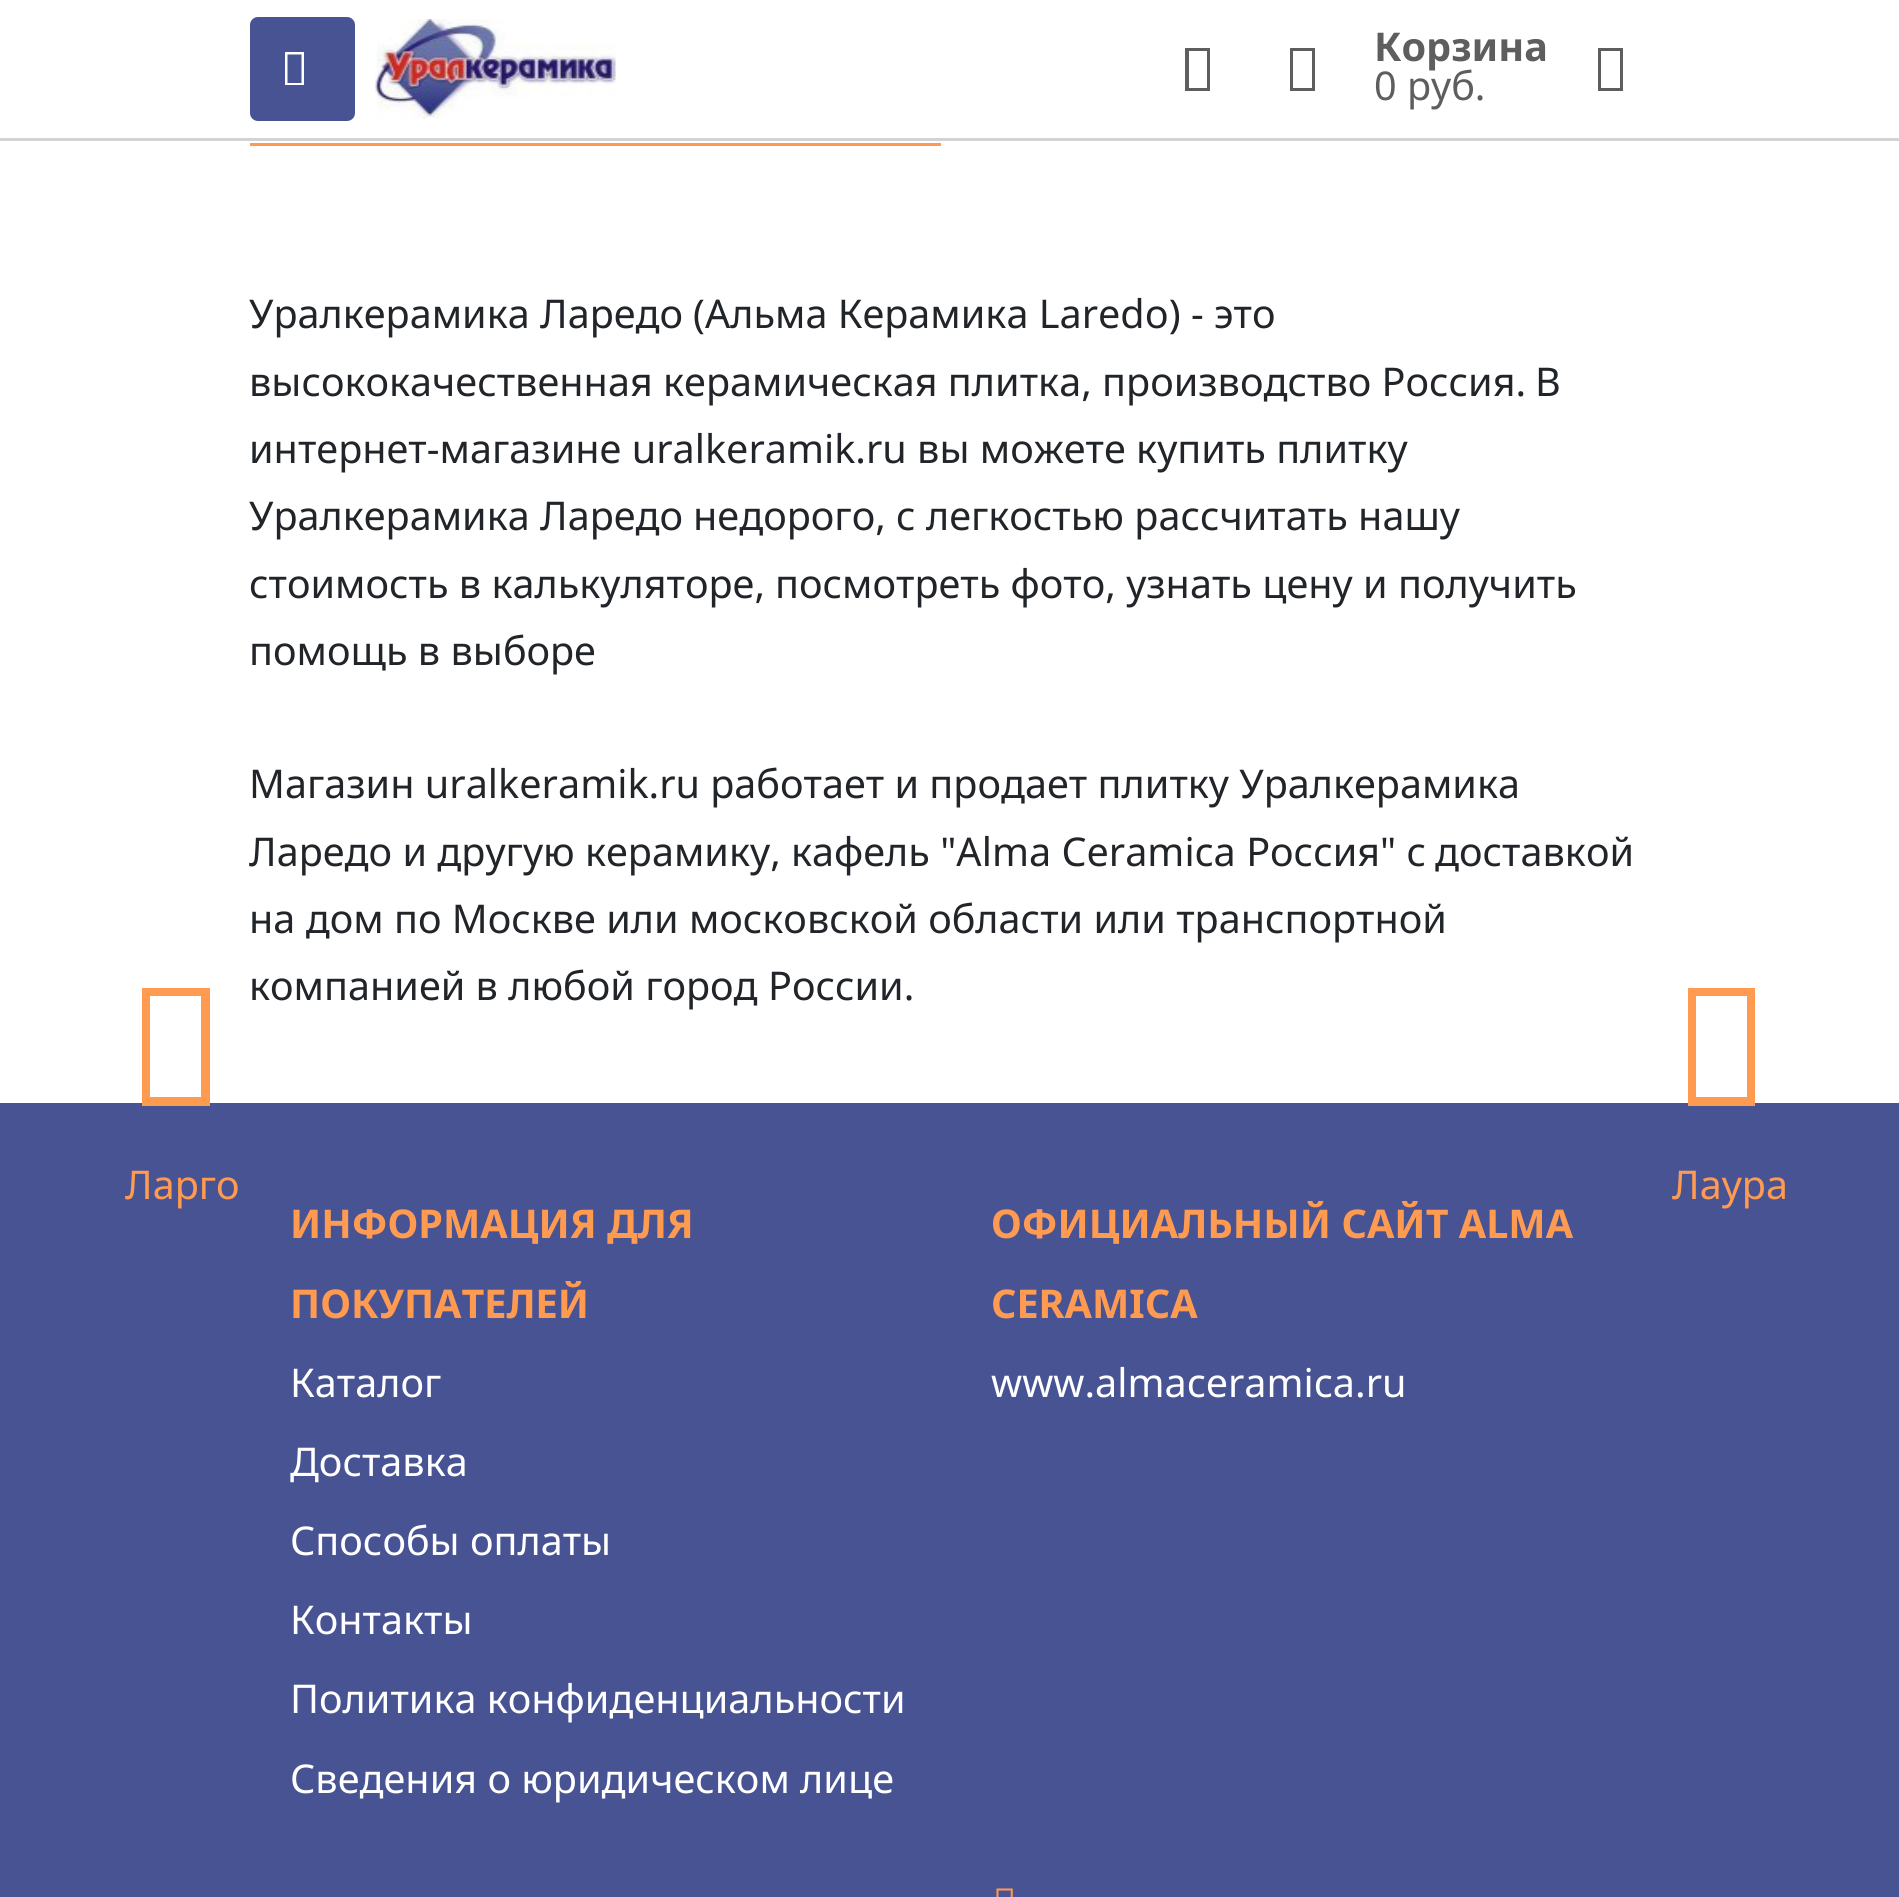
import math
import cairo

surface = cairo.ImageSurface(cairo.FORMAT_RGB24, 1899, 1897)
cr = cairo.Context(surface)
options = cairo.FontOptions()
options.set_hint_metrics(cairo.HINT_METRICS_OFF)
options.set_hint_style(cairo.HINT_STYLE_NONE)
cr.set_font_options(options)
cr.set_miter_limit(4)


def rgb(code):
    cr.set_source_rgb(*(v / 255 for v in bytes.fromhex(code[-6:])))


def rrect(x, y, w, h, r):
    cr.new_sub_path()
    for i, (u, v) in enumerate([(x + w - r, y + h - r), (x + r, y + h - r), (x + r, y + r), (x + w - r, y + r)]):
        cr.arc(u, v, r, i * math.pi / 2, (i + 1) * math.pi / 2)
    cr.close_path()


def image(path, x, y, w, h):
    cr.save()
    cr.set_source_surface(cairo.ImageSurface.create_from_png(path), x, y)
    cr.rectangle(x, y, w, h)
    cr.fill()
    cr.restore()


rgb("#ffffff")
cr.paint()
rgb("#d3d3d3")
cr.rectangle(0, 138, 1899, 3)
cr.fill()
rgb("#485394")
rrect(250, 17, 105, 104, 8)
cr.fill()
rgb("#ffffff")
cr.new_path()
cr.move_to(285, 85)
cr.line_to(285, 52)
cr.line_to(304, 52)
cr.line_to(304, 85)
cr.close_path()
cr.move_to(287.5, 83)
cr.line_to(301.5, 83)
cr.line_to(301.5, 54.5)
cr.line_to(287.5, 54.5)
cr.close_path()
cr.fill()
image("img/1.png", 375, 19, 241, 100)
rgb("#5f5e5e")
cr.new_path()
cr.move_to(1185, 91)
cr.line_to(1185, 48)
cr.line_to(1210, 48)
cr.line_to(1210, 91)
cr.close_path()
cr.move_to(1189, 88)
cr.line_to(1207, 88)
cr.line_to(1207, 51)
cr.line_to(1189, 51)
cr.close_path()
cr.fill()
cr.new_path()
cr.move_to(1290, 91)
cr.line_to(1290, 48)
cr.line_to(1315, 48)
cr.line_to(1315, 91)
cr.close_path()
cr.move_to(1293, 88)
cr.line_to(1312, 88)
cr.line_to(1312, 51)
cr.line_to(1293, 51)
cr.close_path()
cr.fill()
cr.new_path()
cr.move_to(1598, 91)
cr.line_to(1598, 48)
cr.line_to(1623, 48)
cr.line_to(1623, 91)
cr.close_path()
cr.move_to(1601, 88)
cr.line_to(1620, 88)
cr.line_to(1620, 51)
cr.line_to(1601, 51)
cr.close_path()
cr.fill()
rgb("#ff9a51")
cr.rectangle(250, 143, 691, 3)
cr.fill()
rgb("#485394")
cr.rectangle(0, 1103, 1899, 794)
cr.fill()
rgb("#ff9a51")
cr.new_path()
cr.move_to(142, 1106)
cr.line_to(142, 988)
cr.line_to(210, 988)
cr.line_to(210, 1106)
cr.close_path()
cr.move_to(150, 1097)
cr.line_to(201, 1097)
cr.line_to(201, 996)
cr.line_to(150, 996)
cr.close_path()
cr.fill()
cr.new_path()
cr.move_to(1688, 1106)
cr.line_to(1688, 988)
cr.line_to(1755, 988)
cr.line_to(1755, 1106)
cr.close_path()
cr.move_to(1696, 1097)
cr.line_to(1747, 1097)
cr.line_to(1747, 996)
cr.line_to(1696, 996)
cr.close_path()
cr.fill()
image("img/2.png", 996, 1888, 17, 9)
cr.select_font_face("Noto Sans", cairo.FONT_SLANT_NORMAL, cairo.FONT_WEIGHT_BOLD)
cr.set_font_size(39.6)
rgb("#5f5e5e")
cr.move_to(1374, 61)
cr.show_text("Корзина")
cr.select_font_face("Noto Sans")
cr.move_to(1374, 100)
cr.show_text("0 руб.")
rgb("#212529")
for x, y, s in [
    (249, 328, "Уралкерамика Ларедо"),
    (693, 328, "(Альма Керамика Laredo)"),
    (1191, 328, "- это"),
    (249, 396, "высококачественная керамическая плитка, производство Россия."),
    (1535, 396, "В"),
    (249, 463, "интернет-магазине uralkeramik.ru вы можете купить плитку"),
    (249, 530, "Уралкерамика Ларедо"),
    (693, 530, "недорого, с легкостью рассчитать нашу"),
    (249, 598, "стоимость в калькуляторе,"),
    (775, 598, "посмотреть фото, узнать цену и получить"),
    (249, 665, "помощь в выборе"),
    (249, 798, "Магазин uralkeramik.ru работает и продает плитку Уралкерамика"),
    (249, 866, "Ларедо и другую керамику, кафель \"Alma Ceramica Россия\" с"),
    (1435, 866, "доставкой"),
    (249, 933, "на дом по Москве или московской области или транспортной"),
    (249, 1000, "компанией в любой город России."),
]:
    cr.move_to(x, y)
    cr.show_text(s)
rgb("#ff9a51")
cr.move_to(125, 1199)
cr.show_text("Ларго")
cr.move_to(1672, 1199)
cr.show_text("Лаура")
cr.select_font_face("Noto Sans", cairo.FONT_SLANT_NORMAL, cairo.FONT_WEIGHT_BOLD)
cr.move_to(290, 1238)
cr.show_text("ИНФОРМАЦИЯ ДЛЯ")
cr.move_to(290, 1318)
cr.show_text("ПОКУПАТЕЛЕЙ")
cr.select_font_face("Noto Sans")
rgb("#ffffff")
for x, y, s in [
    (290, 1397, "Каталог"),
    (290, 1476, "Доставка"),
    (290, 1555, "Способы оплаты"),
    (290, 1634, "Контакты"),
    (290, 1713, "Политика конфиденциальности"),
    (290, 1793, "Сведения о юридическом лице"),
]:
    cr.move_to(x, y)
    cr.show_text(s)
cr.select_font_face("Noto Sans", cairo.FONT_SLANT_NORMAL, cairo.FONT_WEIGHT_BOLD)
rgb("#ff9a51")
cr.move_to(991, 1238)
cr.show_text("ОФИЦИАЛЬНЫЙ САЙТ ALMA")
cr.move_to(991, 1318)
cr.show_text("CERAMICA")
cr.select_font_face("Noto Sans")
rgb("#ffffff")
cr.move_to(991, 1397)
cr.show_text("www.almaceramica.ru")
surface.write_to_png("page.png")
